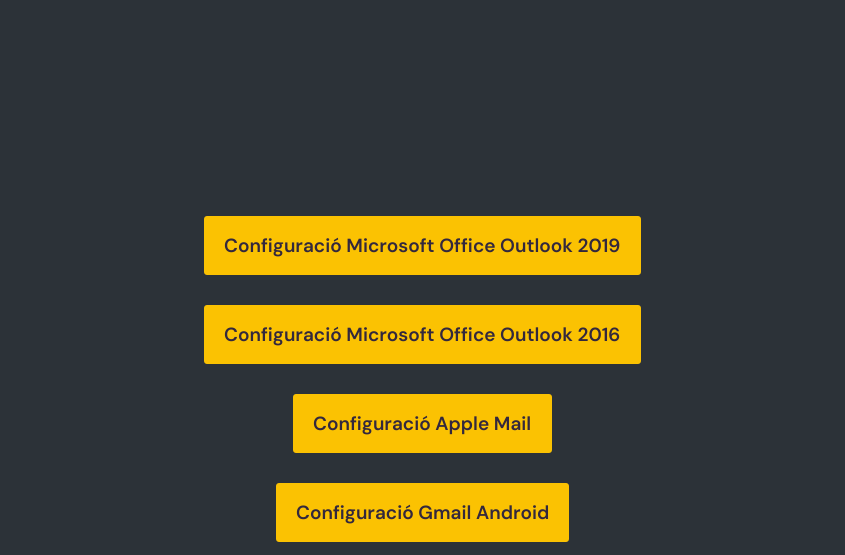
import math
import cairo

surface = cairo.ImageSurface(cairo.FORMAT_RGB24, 845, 555)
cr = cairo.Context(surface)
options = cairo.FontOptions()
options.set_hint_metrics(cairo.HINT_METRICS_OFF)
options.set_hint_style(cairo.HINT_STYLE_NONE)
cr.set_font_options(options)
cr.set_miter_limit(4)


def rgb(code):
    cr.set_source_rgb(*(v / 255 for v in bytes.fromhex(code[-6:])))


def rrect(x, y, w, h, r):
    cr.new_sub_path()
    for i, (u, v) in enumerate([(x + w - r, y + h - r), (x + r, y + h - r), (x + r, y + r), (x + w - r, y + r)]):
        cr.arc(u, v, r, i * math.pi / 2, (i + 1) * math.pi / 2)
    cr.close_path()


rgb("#2c3238")
cr.paint()
rgb("#fbc202")
rrect(204, 216, 437, 59, 3)
cr.fill()
rrect(204, 305, 437, 59, 3)
cr.fill()
rrect(293, 394, 259, 59, 3)
cr.fill()
rrect(276, 483, 293, 59, 3)
cr.fill()
cr.select_font_face("DM Sans SemiBold")
cr.set_font_size(19)
rgb("#33283d")
for x, y, s in [
    (224, 252, "Configuració Microsoft Office Outlook 2019"),
    (224, 341, "Configuració Microsoft Office Outlook 2016"),
    (313, 430, "Configuració Apple Mail"),
    (296, 519, "Configuració Gmail Android"),
]:
    cr.move_to(x, y)
    cr.show_text(s)
surface.write_to_png("page.png")
